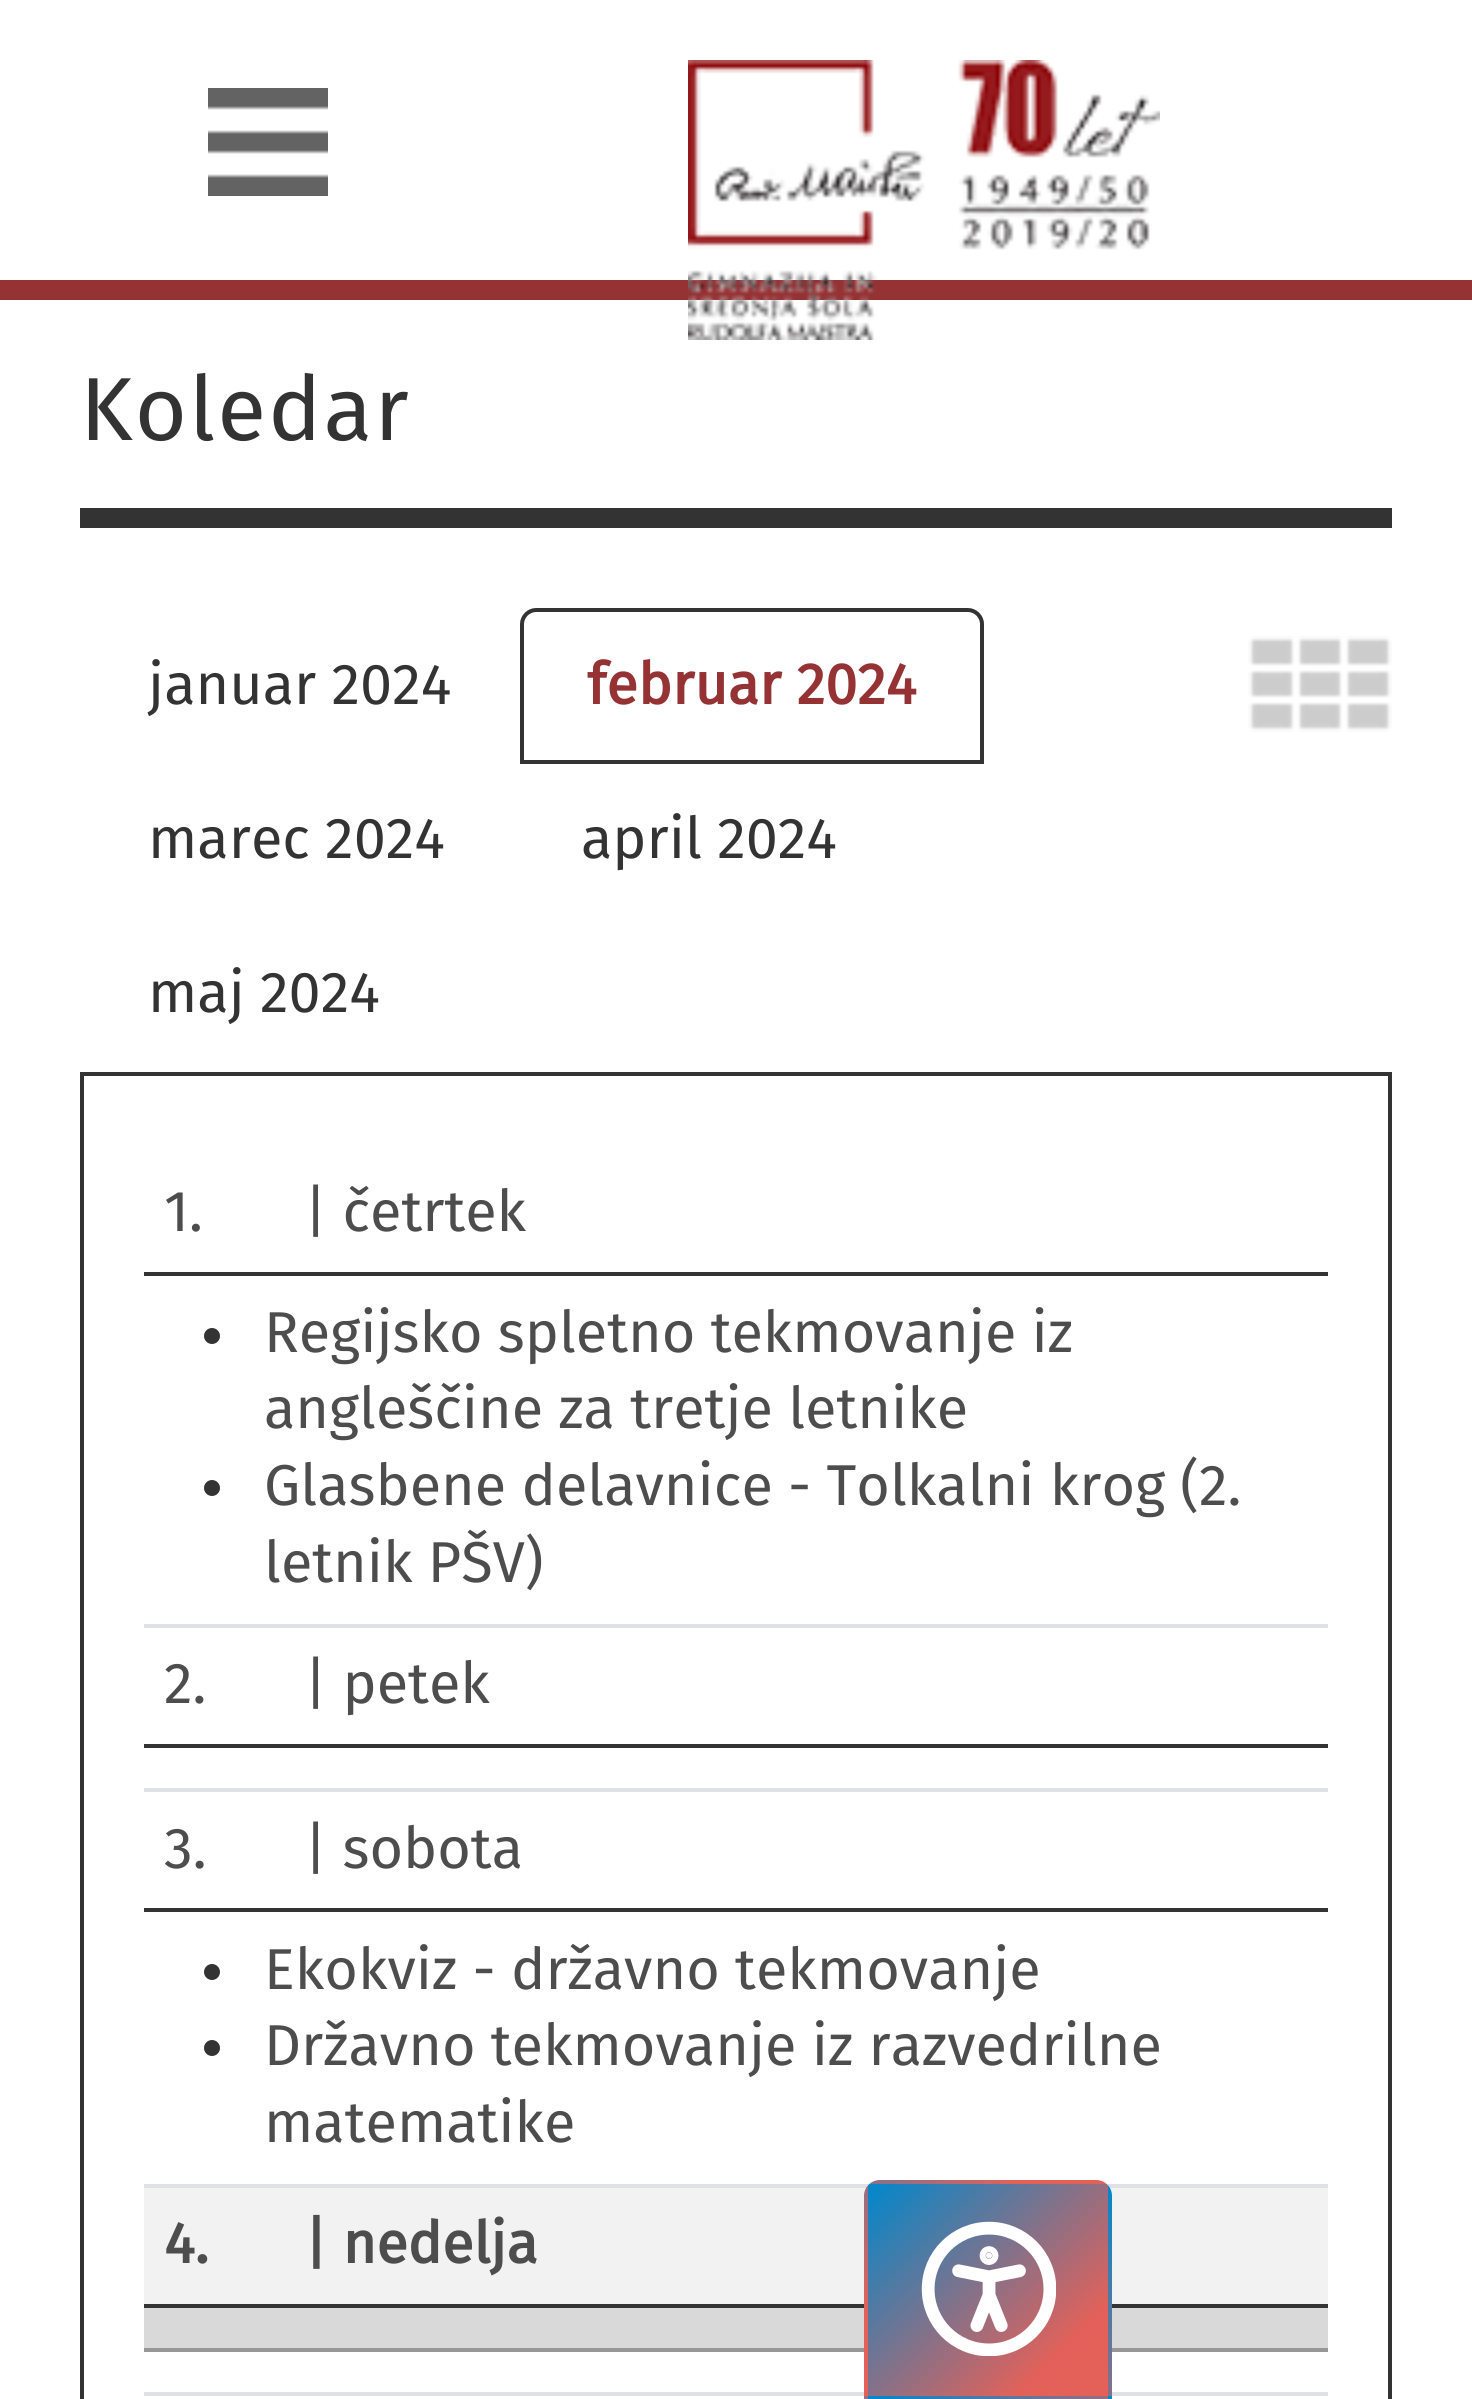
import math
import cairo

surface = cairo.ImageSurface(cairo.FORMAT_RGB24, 1472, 2399)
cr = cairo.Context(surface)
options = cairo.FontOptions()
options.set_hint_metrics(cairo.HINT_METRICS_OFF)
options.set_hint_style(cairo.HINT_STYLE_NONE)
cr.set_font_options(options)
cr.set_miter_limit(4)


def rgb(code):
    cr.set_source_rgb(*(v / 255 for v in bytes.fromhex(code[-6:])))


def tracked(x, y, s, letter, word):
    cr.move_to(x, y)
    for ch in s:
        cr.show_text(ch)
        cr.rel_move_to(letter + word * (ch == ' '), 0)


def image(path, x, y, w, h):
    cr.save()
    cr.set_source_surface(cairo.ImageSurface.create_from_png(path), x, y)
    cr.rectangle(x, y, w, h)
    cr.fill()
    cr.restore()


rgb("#ffffff")
cr.paint()
rgb("#953234")
cr.rectangle(0, 280, 1472, 20)
cr.fill()
image("img/1.png", 208, 88, 120, 108)
image("img/2.png", 688, 60, 472, 280)
rgb("#333333")
cr.rectangle(80, 508, 1312, 20)
cr.fill()
cr.rectangle(80, 1072, 1312, 4)
cr.fill()
cr.new_path()
cr.move_to(536, 610)
cr.line_to(968, 610)
cr.curve_to(975.5, 610, 982, 616.5, 982, 624)
cr.line_to(982, 762)
cr.line_to(522, 762)
cr.line_to(522, 624)
cr.curve_to(522, 616.5, 528.5, 610, 536, 610)
cr.close_path()
cr.set_line_width(4)
cr.stroke()
image("img/3.png", 1248, 636, 144, 96)
for x, y, w, h, color in [
    (1388, 1076, 4, 1323, "#333333"),
    (80, 1076, 4, 1323, "#333333"),
    (144, 1624, 1184, 4, "#dee2e6"),
    (144, 1272, 1184, 4, "#333333"),
]:
    rgb(color)
    cr.rectangle(x, y, w, h)
    cr.fill()
cr.arc(212, 1336, 8, 0, 2 * math.pi)
cr.fill()
cr.arc(212, 1488, 8, 0, 2 * math.pi)
cr.fill()
for x, y, w, h, color in [
    (144, 1788, 1184, 4, "#dee2e6"),
    (144, 1744, 1184, 4, "#333333"),
    (144, 2184, 1184, 4, "#dee2e6"),
    (144, 1908, 1184, 4, "#333333"),
]:
    rgb(color)
    cr.rectangle(x, y, w, h)
    cr.fill()
cr.arc(212, 1972, 8, 0, 2 * math.pi)
cr.fill()
cr.arc(212, 2048, 8, 0, 2 * math.pi)
cr.fill()
for x, y, w, h, color in [
    (144, 2308, 1184, 40, "#d9d9d9"),
    (144, 2348, 1184, 4, "#979797"),
    (144, 2188, 1184, 116, "#f2f2f2"),
    (144, 2304, 1184, 4, "#333333"),
    (144, 2392, 1184, 4, "#dee2e6"),
]:
    rgb(color)
    cr.rectangle(x, y, w, h)
    cr.fill()
cr.save()
cr.new_path()
cr.move_to(880, 2180)
cr.line_to(1096, 2180)
cr.curve_to(1105, 2180, 1112, 2187, 1112, 2196)
cr.line_to(1112, 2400)
cr.line_to(864, 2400)
cr.line_to(864, 2196)
cr.curve_to(864, 2187, 871, 2180, 880, 2180)
cr.close_path()
cr.clip()
gradient = cairo.LinearGradient(875, 1965, 1101, 2191)
gradient.add_color_stop_rgba(0, 0, 0.533, 0.8, 1)
gradient.add_color_stop_rgba(0.8, 0.89, 0.38, 0.349, 1)
cr.set_source(gradient)
cr.rectangle(868, 2180, 240, 4)
cr.fill()
gradient = cairo.LinearGradient(635, 2177, 861, 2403)
gradient.add_color_stop_rgba(0, 0, 0.533, 0.8, 1)
gradient.add_color_stop_rgba(0.8, 0.89, 0.38, 0.349, 1)
cr.set_source(gradient)
cr.rectangle(864, 2184, 4, 212)
cr.fill()
gradient = cairo.LinearGradient(875, 2177, 1101, 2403)
gradient.add_color_stop_rgba(0, 0, 0.533, 0.8, 1)
gradient.add_color_stop_rgba(0.8, 0.89, 0.38, 0.349, 1)
cr.set_source(gradient)
cr.rectangle(868, 2184, 240, 212)
cr.fill()
gradient = cairo.LinearGradient(1115, 2177, 1341, 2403)
gradient.add_color_stop_rgba(0, 0, 0.533, 0.8, 1)
gradient.add_color_stop_rgba(0.8, 0.89, 0.38, 0.349, 1)
cr.set_source(gradient)
cr.rectangle(1108, 2184, 4, 212)
cr.fill()
cr.restore()
gradient = cairo.LinearGradient(635, 2389, 861, 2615)
gradient.add_color_stop_rgba(0, 0, 0.533, 0.8, 1)
gradient.add_color_stop_rgba(0.8, 0.89, 0.38, 0.349, 1)
cr.set_source(gradient)
cr.rectangle(864, 2396, 4, 3)
cr.fill()
gradient = cairo.LinearGradient(875, 2389, 1101, 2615)
gradient.add_color_stop_rgba(0, 0, 0.533, 0.8, 1)
gradient.add_color_stop_rgba(0.8, 0.89, 0.38, 0.349, 1)
cr.set_source(gradient)
cr.rectangle(868, 2396, 240, 3)
cr.fill()
gradient = cairo.LinearGradient(1115, 2389, 1341, 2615)
gradient.add_color_stop_rgba(0, 0, 0.533, 0.8, 1)
gradient.add_color_stop_rgba(0.8, 0.89, 0.38, 0.349, 1)
cr.set_source(gradient)
cr.rectangle(1108, 2396, 4, 3)
cr.fill()
image("img/4.png", 921, 2221, 135, 135)
cr.select_font_face("Fira Sans")
cr.set_font_size(89.5)
rgb("#333333")
tracked(80, 440, "Koledar", 2, 0)
cr.set_font_size(57.6)
cr.move_to(148, 704)
cr.show_text("januar 2024")
cr.select_font_face("Fira Sans", cairo.FONT_SLANT_NORMAL, cairo.FONT_WEIGHT_BOLD)
rgb("#953234")
cr.move_to(587, 704)
cr.show_text("februar 2024")
cr.select_font_face("Fira Sans")
rgb("#333333")
for x, y, s in [
    (148, 858, "marec 2024"),
    (581, 858, "april 2024"),
    (148, 1012, "maj 2024"),
]:
    cr.move_to(x, y)
    cr.show_text(s)
rgb("#4d4d4d")
for x, y, s in [
    (164, 1231, "1."),
    (304, 1231, "| četrtek"),
    (264, 1352, "Regijsko spletno tekmovanje iz"),
    (264, 1428, "angleščine za tretje letnike"),
    (264, 1505, "Glasbene delavnice - Tolkalni krog (2."),
    (264, 1582, "letnik PŠV)"),
    (164, 1703, "2."),
    (304, 1703, "| petek"),
    (164, 1868, "3."),
    (304, 1868, "| sobota"),
    (264, 1989, "Ekokviz - državno tekmovanje"),
    (264, 2065, "Državno tekmovanje iz razvedrilne"),
    (264, 2142, "matematike"),
]:
    cr.move_to(x, y)
    cr.show_text(s)
cr.select_font_face("Fira Sans", cairo.FONT_SLANT_NORMAL, cairo.FONT_WEIGHT_BOLD)
cr.move_to(164, 2263)
cr.show_text("4.")
cr.move_to(304, 2263)
cr.show_text("| nedelja")
surface.write_to_png("page.png")
